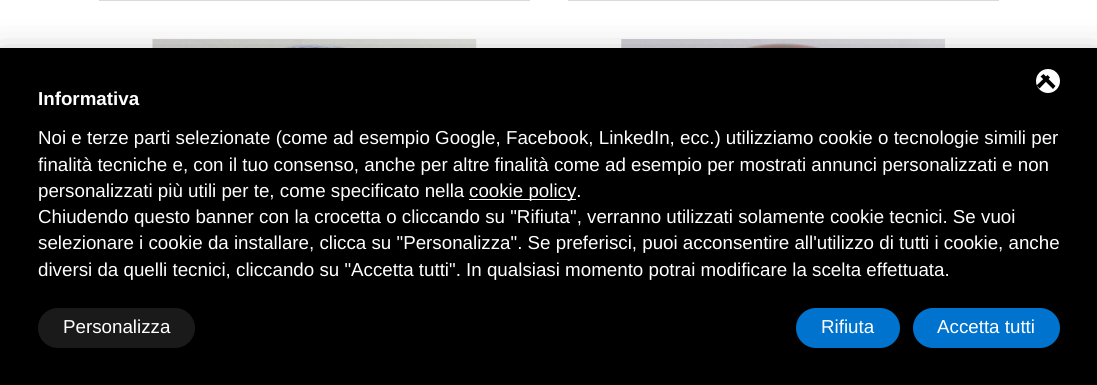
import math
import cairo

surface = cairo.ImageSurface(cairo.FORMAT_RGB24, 1097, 385)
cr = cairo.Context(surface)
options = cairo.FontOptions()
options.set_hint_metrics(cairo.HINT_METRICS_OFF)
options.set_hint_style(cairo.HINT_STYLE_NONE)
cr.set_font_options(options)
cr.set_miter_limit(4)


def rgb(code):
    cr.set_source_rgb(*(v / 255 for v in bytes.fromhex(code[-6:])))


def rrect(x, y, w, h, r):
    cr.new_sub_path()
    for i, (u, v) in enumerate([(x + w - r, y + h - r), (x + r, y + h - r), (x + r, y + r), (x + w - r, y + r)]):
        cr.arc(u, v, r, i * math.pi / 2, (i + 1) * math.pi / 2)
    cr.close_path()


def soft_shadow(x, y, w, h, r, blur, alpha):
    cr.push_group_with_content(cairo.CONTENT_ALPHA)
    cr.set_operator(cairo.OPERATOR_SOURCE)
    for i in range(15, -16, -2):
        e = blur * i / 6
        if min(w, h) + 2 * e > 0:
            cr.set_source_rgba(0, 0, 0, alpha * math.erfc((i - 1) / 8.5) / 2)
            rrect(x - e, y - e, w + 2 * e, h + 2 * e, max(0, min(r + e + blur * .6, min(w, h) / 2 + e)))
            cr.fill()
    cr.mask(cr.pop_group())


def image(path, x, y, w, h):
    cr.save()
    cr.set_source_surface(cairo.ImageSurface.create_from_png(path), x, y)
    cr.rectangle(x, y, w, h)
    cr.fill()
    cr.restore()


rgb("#ffffff")
cr.paint()
rgb("#dadada")
cr.rectangle(99, 0, 431, 1)
cr.fill()
cr.rectangle(568, 0, 431, 1)
cr.fill()
image("img/1.png", 152, 39, 325, 9)
image("img/2.png", 621, 39, 324, 9)
rgb("#000000")
soft_shadow(0, 60, 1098, 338, 0, 19, 0.33)
rgb("#000000")
cr.rectangle(0, 48, 1097, 337)
cr.fill()
rgb("#ffffff")
cr.arc(1048, 81, 12, 0, 2 * math.pi)
cr.fill()
rgb("#000000")
cr.new_path()
cr.move_to(1040.5, 76.5)
cr.line_to(1043.5, 74)
cr.line_to(1055.5, 86)
cr.line_to(1053, 89)
cr.close_path()
cr.fill()
cr.new_path()
cr.move_to(1047.5, 75)
cr.line_to(1050, 77.5)
cr.line_to(1039.5, 88.5)
cr.line_to(1036.5, 85.5)
cr.close_path()
cr.fill()
rgb("#ffffff")
cr.rectangle(469, 199, 107, 1)
cr.fill()
rgb("#1a1a1a")
rrect(38, 308, 157, 40, 20)
cr.fill()
rgb("#0073ce")
rrect(796, 308, 104, 40, 20)
cr.fill()
rrect(913, 308, 147, 40, 20)
cr.fill()
cr.select_font_face("Liberation Sans", cairo.FONT_SLANT_NORMAL, cairo.FONT_WEIGHT_BOLD)
cr.set_font_size(18.75)
rgb("#ffffff")
cr.move_to(38, 105)
cr.show_text("Informativa")
cr.select_font_face("Liberation Sans")
for x, y, s in [
    (38, 144, "Noi e terze parti selezionate (come ad esempio Google, Facebook, LinkedIn, ecc.) utilizziamo cookie o tecnologie simili per"),
    (38, 171, "finalità tecniche e, con il tuo consenso, anche per altre finalità come ad esempio per mostrati annunci personalizzati e non"),
    (38, 197, "personalizzati più utili per te, come specificato nella"),
    (469, 197, "cookie policy."),
    (38, 223, "Chiudendo questo banner con la crocetta o cliccando su \"Rifiuta\", verranno utilizzati solamente cookie tecnici. Se vuoi"),
    (38, 249, "selezionare i cookie da installare, clicca su \"Personalizza\". Se preferisci, puoi acconsentire all'utilizzo di tutti i cookie, anche"),
    (38, 276, "diversi da quelli tecnici, cliccando su \"Accetta tutti\". In qualsiasi momento potrai modificare la scelta effettuata."),
    (63, 333, "Personalizza"),
    (821, 333, "Rifiuta"),
    (937, 333, "Accetta tutti"),
]:
    cr.move_to(x, y)
    cr.show_text(s)
surface.write_to_png("page.png")
